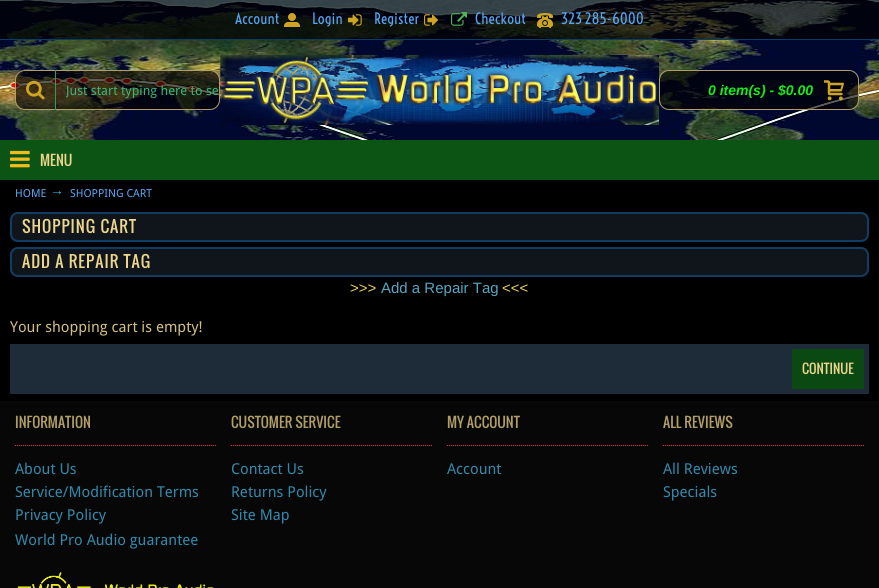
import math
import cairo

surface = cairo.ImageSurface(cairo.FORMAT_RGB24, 879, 588)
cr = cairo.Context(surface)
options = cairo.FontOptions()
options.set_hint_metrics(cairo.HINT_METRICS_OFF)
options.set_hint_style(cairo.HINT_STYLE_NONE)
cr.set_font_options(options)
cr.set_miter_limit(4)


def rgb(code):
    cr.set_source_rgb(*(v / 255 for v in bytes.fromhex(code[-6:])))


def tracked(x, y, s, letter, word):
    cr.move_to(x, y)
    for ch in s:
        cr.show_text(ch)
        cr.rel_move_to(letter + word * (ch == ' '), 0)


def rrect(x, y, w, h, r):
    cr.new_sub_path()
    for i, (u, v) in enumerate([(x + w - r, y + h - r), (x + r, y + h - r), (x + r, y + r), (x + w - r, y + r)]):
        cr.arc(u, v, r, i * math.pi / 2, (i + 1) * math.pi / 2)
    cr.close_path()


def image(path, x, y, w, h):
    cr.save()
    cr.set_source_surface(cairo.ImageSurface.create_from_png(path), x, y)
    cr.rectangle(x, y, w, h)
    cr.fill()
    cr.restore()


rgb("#000000")
cr.paint()
image("img/1.png", 0, 0, 879, 140)
cr.set_source_rgba(0, 0, 0, 0.7)
cr.rectangle(0, 0, 879, 39)
cr.fill()
rgb("#0c3b64")
cr.rectangle(0, 39, 879, 1)
cr.fill()
image("img/2.png", 284, 13, 16, 14)
image("img/3.png", 348, 14, 14, 12)
image("img/4.png", 424, 14, 14, 12)
image("img/5.png", 451, 12, 16, 14)
image("img/6.png", 537, 13, 16, 15)
cr.set_source_rgba(0, 0, 0, 0.63)
rrect(15.5, 70.5, 204, 39, 9.5)
cr.fill_preserve()
rgb("#b09e66")
cr.set_line_width(1)
cr.stroke()
rgb("#339965")
cr.rectangle(55, 70, 1, 40)
cr.fill()
image("img/7.png", 26, 80, 19, 20)
image("img/8.png", 220, 54, 439, 71)
cr.set_source_rgba(0, 0, 0, 0.63)
rrect(659.5, 70.5, 199, 39, 9.5)
cr.fill_preserve()
rgb("#b09e66")
cr.stroke()
image("img/9.png", 824, 80, 20, 21)
rgb("#0b5414")
cr.rectangle(0, 140, 879, 40)
cr.fill()
image("img/10.png", 10, 150, 20, 18)
rgb("#0f151b")
rrect(10, 212, 859, 30, 8)
cr.fill()
rrect(11, 213, 857, 28, 7)
cr.set_source_rgba(0.078, 0.298, 0.494, 0.73)
cr.set_line_width(2)
cr.stroke()
rgb("#0f151b")
rrect(10, 247, 859, 30, 8)
cr.fill()
rrect(11, 248, 857, 28, 7)
cr.set_source_rgba(0.078, 0.298, 0.494, 0.73)
cr.stroke()
rgb("#1e2b38")
cr.rectangle(10, 344, 859, 50)
cr.fill()
rgb("#0a4a12")
rrect(792, 349, 72, 40, 2)
cr.fill()
rgb("#070707")
cr.rectangle(0, 401, 879, 187)
cr.fill()
cr.new_path()
cr.move_to(15, 445.5)
cr.line_to(216, 445.5)
rgb("#ea2349")
cr.set_line_width(1)
cr.set_dash([1, 1])
cr.stroke()
cr.new_path()
cr.move_to(231, 445.5)
cr.line_to(432, 445.5)
cr.stroke()
cr.new_path()
cr.move_to(447, 445.5)
cr.line_to(648, 445.5)
cr.stroke()
cr.new_path()
cr.move_to(663, 445.5)
cr.line_to(864, 445.5)
cr.stroke()
image("img/11.png", 17, 572, 197, 16)
cr.select_font_face("Voltaire")
cr.set_font_size(15)
rgb("#58a6f3")
for x, y, s in [
    (235, 24, "Account"),
    (312, 24, "Login"),
    (374, 24, "Register"),
    (475, 24, "Checkout"),
    (561, 24, "323 285-6000"),
]:
    cr.move_to(x, y)
    cr.show_text(s)
cr.save()
cr.rectangle(66, 81, 153, 18)
cr.clip()
cr.select_font_face("Droid Sans")
cr.set_font_size(13)
rgb("#3ab576")
cr.move_to(66, 95)
cr.show_text("Just start typing here to se")
cr.restore()
cr.select_font_face("Liberation Sans", cairo.FONT_SLANT_ITALIC, cairo.FONT_WEIGHT_BOLD)
cr.set_font_size(14)
rgb("#11f10f")
cr.move_to(708, 95)
cr.show_text("0 item(s) - $0.00")
cr.select_font_face("Oswald")
rgb("#edd58b")
cr.move_to(40, 166)
cr.show_text("MENU")
cr.select_font_face("Droid Sans")
cr.set_font_size(11)
rgb("#58a6f3")
cr.move_to(15, 197)
cr.show_text("HOME")
cr.select_font_face("Liberation Serif")
cr.set_font_size(14)
rgb("#2bb0e3")
cr.move_to(50, 195)
cr.show_text("→")
cr.select_font_face("Droid Sans")
cr.set_font_size(11)
rgb("#58a6f3")
cr.move_to(70, 197)
cr.show_text("SHOPPING CART")
cr.select_font_face("Oswald")
cr.set_font_size(16)
rgb("#edd58b")
tracked(22, 233, "SHOPPING CART", 1, 0)
tracked(22, 268, "ADD A REPAIR TAG", 1, 0)
cr.select_font_face("Liberation Sans")
cr.set_font_size(15)
rgb("#eac966")
cr.move_to(350, 293)
cr.show_text(">>>")
rgb("#57a5c4")
cr.move_to(381, 293)
cr.show_text("Add a Repair Tag")
rgb("#eac966")
cr.move_to(502, 293)
cr.show_text("<<<")
cr.select_font_face("Droid Sans")
rgb("#d3bf7e")
cr.move_to(10, 332)
cr.show_text("Your shopping cart is empty!")
cr.select_font_face("Oswald")
cr.set_font_size(13)
rgb("#edd58b")
cr.move_to(802, 374)
cr.show_text("CONTINUE")
cr.set_font_size(14)
rgb("#b09e66")
cr.move_to(15, 428)
cr.show_text("INFORMATION")
cr.select_font_face("Droid Sans")
cr.set_font_size(15)
rgb("#3389ab")
for x, y, s in [
    (15, 474, "About Us"),
    (15, 497, "Service/Modification Terms"),
    (15, 520, "Privacy Policy"),
    (15, 545, "World Pro Audio guarantee"),
]:
    cr.move_to(x, y)
    cr.show_text(s)
cr.select_font_face("Oswald")
cr.set_font_size(14)
rgb("#b09e66")
cr.move_to(231, 428)
cr.show_text("CUSTOMER SERVICE")
cr.select_font_face("Droid Sans")
cr.set_font_size(15)
rgb("#3389ab")
for x, y, s in [
    (231, 474, "Contact Us"),
    (231, 497, "Returns Policy"),
    (231, 520, "Site Map"),
]:
    cr.move_to(x, y)
    cr.show_text(s)
cr.select_font_face("Oswald")
cr.set_font_size(14)
rgb("#b09e66")
cr.move_to(447, 428)
cr.show_text("MY ACCOUNT")
cr.select_font_face("Droid Sans")
cr.set_font_size(15)
rgb("#3389ab")
cr.move_to(447, 474)
cr.show_text("Account")
cr.select_font_face("Oswald")
cr.set_font_size(14)
rgb("#b09e66")
cr.move_to(663, 428)
cr.show_text("ALL REVIEWS")
cr.select_font_face("Droid Sans")
cr.set_font_size(15)
rgb("#3389ab")
cr.move_to(663, 474)
cr.show_text("All Reviews")
cr.move_to(663, 497)
cr.show_text("Specials")
surface.write_to_png("page.png")
